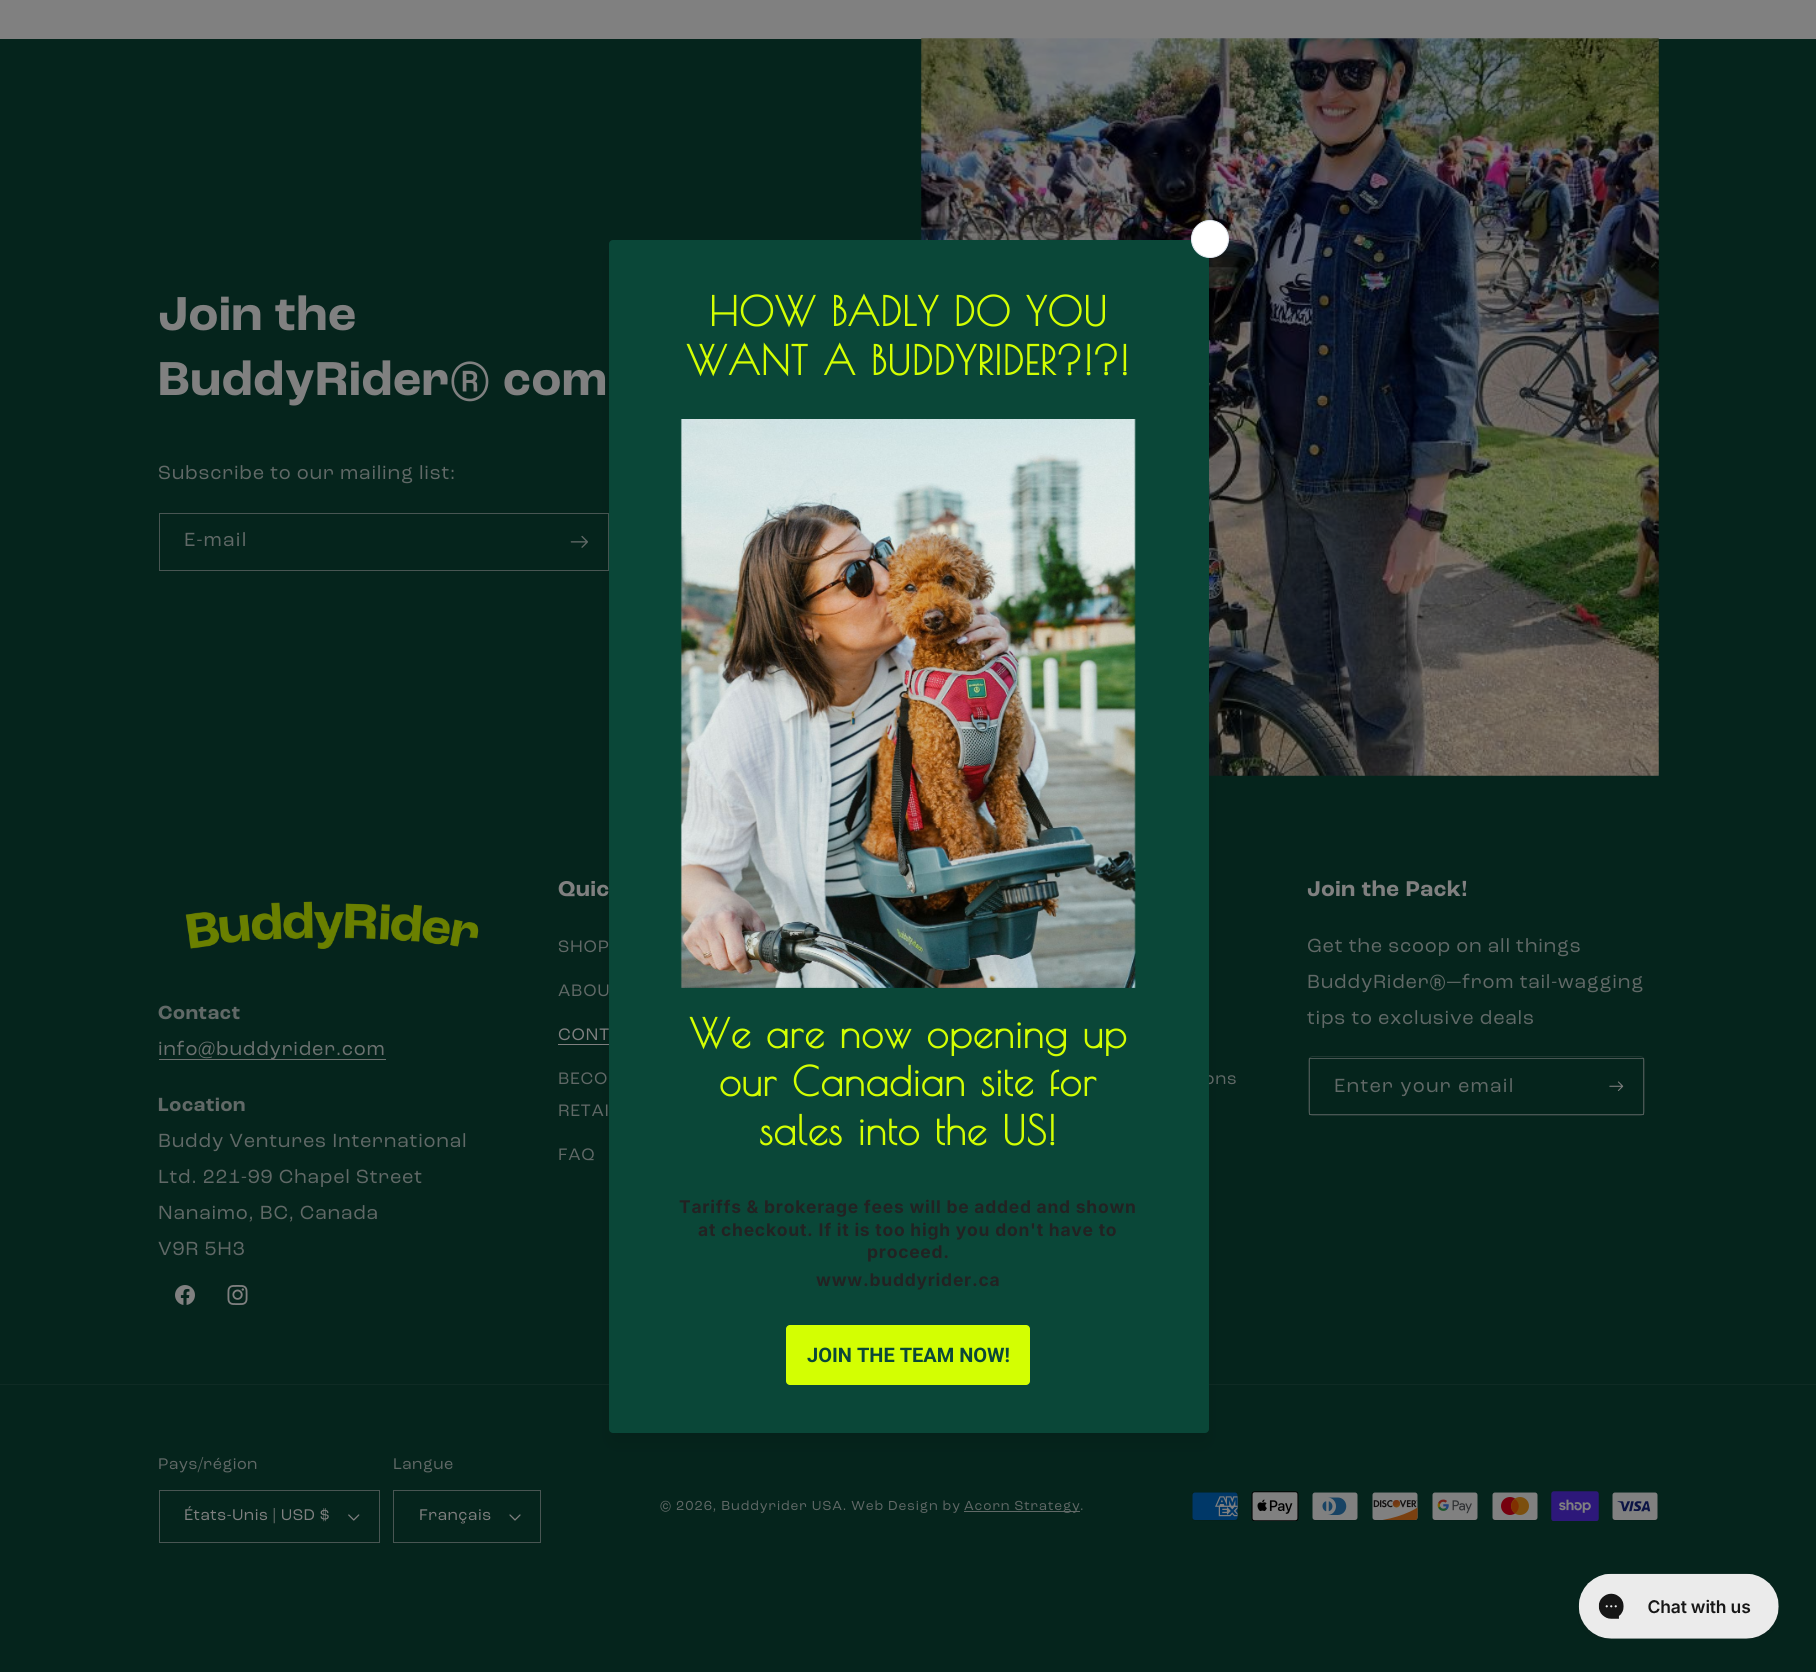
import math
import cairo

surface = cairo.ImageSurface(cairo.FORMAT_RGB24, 1816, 1672)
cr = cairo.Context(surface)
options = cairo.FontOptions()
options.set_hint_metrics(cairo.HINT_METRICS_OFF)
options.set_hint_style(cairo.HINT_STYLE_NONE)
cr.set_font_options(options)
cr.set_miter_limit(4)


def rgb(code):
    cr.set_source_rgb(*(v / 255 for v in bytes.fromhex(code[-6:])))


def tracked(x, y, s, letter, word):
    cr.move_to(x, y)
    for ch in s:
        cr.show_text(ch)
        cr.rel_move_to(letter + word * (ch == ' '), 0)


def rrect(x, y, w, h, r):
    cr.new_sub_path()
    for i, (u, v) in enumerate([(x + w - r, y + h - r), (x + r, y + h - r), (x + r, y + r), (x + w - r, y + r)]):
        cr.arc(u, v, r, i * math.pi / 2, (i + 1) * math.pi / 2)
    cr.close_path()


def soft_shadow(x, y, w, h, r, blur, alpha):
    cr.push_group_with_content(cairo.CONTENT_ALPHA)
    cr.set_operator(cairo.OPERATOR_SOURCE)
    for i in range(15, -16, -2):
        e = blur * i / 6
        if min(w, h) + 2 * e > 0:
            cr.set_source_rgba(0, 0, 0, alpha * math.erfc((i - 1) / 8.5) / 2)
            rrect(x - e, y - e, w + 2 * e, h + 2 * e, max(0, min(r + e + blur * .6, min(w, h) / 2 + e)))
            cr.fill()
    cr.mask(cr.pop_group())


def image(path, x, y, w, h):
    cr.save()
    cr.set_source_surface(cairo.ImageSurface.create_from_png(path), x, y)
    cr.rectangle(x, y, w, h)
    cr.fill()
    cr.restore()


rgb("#808080")
cr.paint()
rgb("#05241c")
cr.rectangle(0, 39, 1816, 1633)
cr.fill()
cr.rectangle(159.5, 513.5, 449, 57)
rgb("#495653")
cr.set_line_width(1)
cr.stroke()
image("img/1.png", 570, 535, 18, 13)
image("img/2.png", 921, 38, 738, 738)
rgb("#808080")
cr.rectangle(558, 1044, 51, 1)
cr.fill()
rgb("#0f2b24")
cr.rectangle(0, 1384, 1816, 1)
cr.fill()
rgb("#000000")
soft_shadow(613, 256, 592, 1185, 0, 9.5, 0.1)
image("img/4.png", 185, 901, 294, 48)
rgb("#6d7271")
cr.rectangle(159, 1059, 227, 1)
cr.fill()
image("img/5.png", 175, 1285, 20, 20)
image("img/6.png", 227, 1285, 21, 20)
rrect(1308.5, 1056.5, 336, 59, 4.5)
rgb("#1e3630")
cr.stroke()
image("img/7.png", 1609, 1081, 15, 10)
cr.rectangle(1309.5, 1058.5, 334, 56)
cr.set_source_rgba(0.502, 0.502, 0.502, 0.55)
cr.stroke()
image("img/8.png", 348, 1514, 12, 7)
cr.rectangle(159.5, 1490.5, 220, 52)
rgb("#495653")
cr.stroke()
image("img/9.png", 509, 1514, 12, 7)
cr.rectangle(393.5, 1490.5, 147, 52)
cr.stroke()
rgb("#616967")
cr.rectangle(964, 1511, 116, 1)
cr.fill()
image("img/10.png", 1192, 1492, 46, 29)
image("img/11.png", 1251, 1491, 48, 30)
image("img/12.png", 1312, 1492, 46, 29)
image("img/13.png", 1372, 1492, 46, 29)
image("img/14.png", 1432, 1492, 46, 29)
image("img/15.png", 1492, 1492, 46, 29)
image("img/16.png", 1551, 1491, 48, 30)
image("img/17.png", 1612, 1492, 46, 29)
image("img/18.png", 1578, 1573, 201, 66)
cr.select_font_face("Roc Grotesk", cairo.FONT_SLANT_NORMAL, cairo.FONT_WEIGHT_BOLD)
cr.set_font_size(50)
rgb("#808080")
tracked(158, 330, "Join the", 0.75, 0)
tracked(158, 395, "BuddyRider® com", 0.75, 0)
cr.select_font_face("Roc Grotesk")
cr.set_font_size(20)
rgb("#616967")
tracked(158, 479, "Subscribe to our mailing list:", 0.75, 0)
tracked(184, 546, "E-mail", 1.25, 0)
cr.select_font_face("Roc Grotesk", cairo.FONT_SLANT_NORMAL, cairo.FONT_WEIGHT_BOLD)
tracked(158, 1019, "Contact", 0.75, 0)
cr.select_font_face("Roc Grotesk")
rgb("#6d7271")
tracked(158, 1055, "info@buddyrider.com", 0.75, 0)
cr.select_font_face("Roc Grotesk", cairo.FONT_SLANT_NORMAL, cairo.FONT_WEIGHT_BOLD)
rgb("#616967")
tracked(158, 1111, "Location", 0.75, 0)
cr.select_font_face("Roc Grotesk")
for x, y, s in [
    (158, 1147, "Buddy Ventures International"),
    (158, 1183, "Ltd. 221-99 Chapel Street"),
    (158, 1219, "Nanaimo, BC, Canada"),
    (158, 1255, "V9R 5H3"),
]:
    tracked(x, y, s, 0.75, 0)
cr.select_font_face("Roc Grotesk", cairo.FONT_SLANT_NORMAL, cairo.FONT_WEIGHT_BOLD)
cr.set_font_size(22.5)
rgb("#808080")
tracked(558, 896, "Quic", 0.75, 0)
cr.select_font_face("Roc Grotesk")
cr.set_font_size(17.5)
rgb("#616967")
tracked(558, 952, "SHOP", 0.75, 0)
tracked(558, 996, "ABOU", 0.75, 0)
rgb("#808080")
tracked(558, 1040, "CONT", 0.75, 0)
rgb("#616967")
for x, y, s in [
    (558, 1084, "BECO"),
    (558, 1116, "RETAI"),
    (558, 1160, "FAQ"),
    (1204, 1084, "ons"),
]:
    tracked(x, y, s, 0.75, 0)
rgb("#0a4738")
rrect(609, 240, 600, 1193, 4)
cr.fill()
rgb("#ffffff")
cr.arc(1210, 239, 18.5, 0, 2 * math.pi)
cr.fill_preserve()
rgb("#e2e8f0")
cr.stroke()
rgb("#d3ff02")
rrect(786, 1325, 244, 60, 4)
cr.fill()
cr.select_font_face("Roboto", cairo.FONT_SLANT_NORMAL, cairo.FONT_WEIGHT_BOLD)
cr.set_font_size(20)
rgb("#0a4738")
cr.move_to(807, 1362)
cr.show_text("JOIN THE TEAM NOW!")
cr.select_font_face("Inter", cairo.FONT_SLANT_NORMAL, cairo.FONT_WEIGHT_BOLD)
cr.set_font_size(17.5)
rgb("#222222")
for x, y, s in [
    (816, 1286, "www.buddyrider.ca"),
    (867, 1258, "proceed."),
    (698, 1236, "at checkout. If it is too high you don't have to"),
    (679, 1213, "Tariffs & brokerage fees will be added and shown"),
]:
    tracked(x, y, s, 0.75, 0)
cr.select_font_face("Poiret One", cairo.FONT_SLANT_NORMAL, cairo.FONT_WEIGHT_BOLD)
cr.set_font_size(40)
rgb("#d3ff02")
for x, y, s in [
    (759, 1145, "sales into the US!"),
    (719, 1096, "our Canadian site for"),
    (689, 1048, "We are now opening up"),
]:
    tracked(x, y, s, 0.75, 0)
image("img/3.png", 680, 419, 456, 569)
tracked(686, 375, "WANT A BUDDYRIDER?!?!", 0.75, 0)
tracked(709, 326, "HOW BADLY DO YOU", 0.75, 0)
cr.select_font_face("Roc Grotesk", cairo.FONT_SLANT_NORMAL, cairo.FONT_WEIGHT_BOLD)
cr.set_font_size(22.5)
rgb("#808080")
tracked(1307, 896, "Join the Pack!", 0.75, 0)
cr.select_font_face("Roc Grotesk")
cr.set_font_size(20)
rgb("#616967")
for x, y, s in [
    (1307, 952, "Get the scoop on all things"),
    (1307, 988, "BuddyRider®—from tail-wagging"),
    (1307, 1024, "tips to exclusive deals"),
]:
    tracked(x, y, s, 0.75, 0)
tracked(1334, 1092, "Enter your email", 1.25, 0)
cr.set_font_size(16.25)
tracked(158, 1469, "Pays/région", 0.5, 0)
rgb("#808080")
tracked(184, 1520, "États-Unis | USD $", 0.5, 0)
rgb("#616967")
tracked(393, 1469, "Langue", 0.5, 0)
rgb("#808080")
tracked(419, 1520, "Français", 0.5, 0)
cr.set_font_size(13.75)
rgb("#616967")
for x, y, s in [
    (660, 1510, "© 2026, Buddyrider USA. Web Design by"),
    (964, 1510, "Acorn Strategy"),
    (1080, 1510, "."),
]:
    tracked(x, y, s, 0.9, 0)
surface.write_to_png("page.png")
